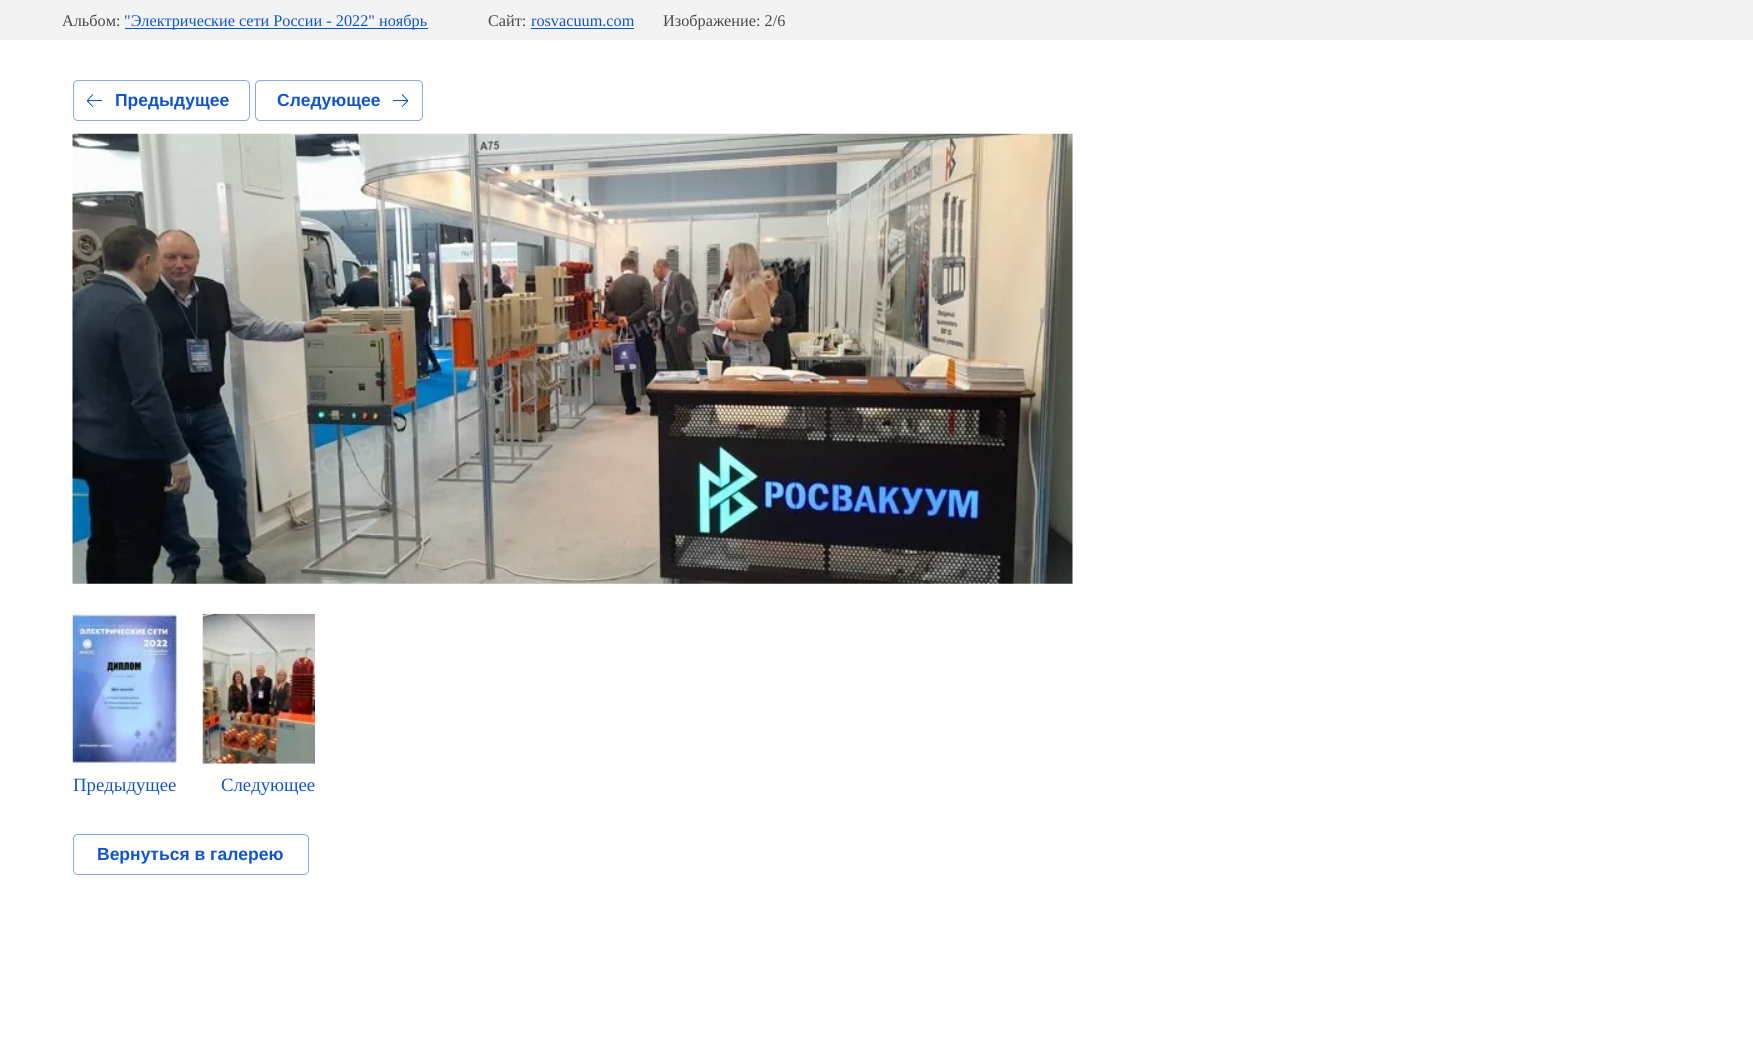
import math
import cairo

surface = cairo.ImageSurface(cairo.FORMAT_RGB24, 1753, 1060)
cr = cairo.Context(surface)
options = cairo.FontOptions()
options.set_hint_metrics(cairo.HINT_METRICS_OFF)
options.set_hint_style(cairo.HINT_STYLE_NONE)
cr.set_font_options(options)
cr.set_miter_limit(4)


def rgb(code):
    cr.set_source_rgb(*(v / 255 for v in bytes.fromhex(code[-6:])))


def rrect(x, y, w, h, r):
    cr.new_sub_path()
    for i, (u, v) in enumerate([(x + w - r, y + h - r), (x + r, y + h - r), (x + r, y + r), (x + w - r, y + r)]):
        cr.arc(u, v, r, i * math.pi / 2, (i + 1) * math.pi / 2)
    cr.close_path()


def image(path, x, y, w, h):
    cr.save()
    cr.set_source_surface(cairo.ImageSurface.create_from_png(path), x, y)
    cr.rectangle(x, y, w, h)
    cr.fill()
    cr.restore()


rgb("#ffffff")
cr.paint()
for x, y, w, h, color in [
    (0, 0, 1753, 40, "#f3f3f3"),
    (125, 28, 303, 1, "#1155cc"),
    (531, 28, 103, 1, "#1155cc"),
]:
    rgb(color)
    cr.rectangle(x, y, w, h)
    cr.fill()
rrect(73.5, 80.5, 176, 40, 4.5)
rgb("#88aae6")
cr.set_line_width(1)
cr.stroke()
image("img/1.png", 86, 94, 17, 13)
rrect(255.5, 80.5, 167, 40, 4.5)
cr.stroke()
image("img/2.png", 393, 94, 16, 13)
image("img/3.png", 72, 133, 1001, 451)
image("img/4.png", 72, 614, 106, 150)
image("img/5.png", 202, 613, 113, 151)
rrect(73.5, 834.5, 235, 40, 4.5)
cr.stroke()
cr.select_font_face("Liberation Serif")
cr.set_font_size(16.25)
rgb("#484848")
cr.move_to(62, 26)
cr.show_text("Альбом:")
rgb("#1155cc")
cr.move_to(124, 26)
cr.show_text("\"Электрические сети России - 2022\" ноябрь")
rgb("#484848")
cr.move_to(488, 26)
cr.show_text("Сайт:")
rgb("#1155cc")
cr.move_to(531, 26)
cr.show_text("rosvacuum.com")
rgb("#484848")
cr.move_to(663, 26)
cr.show_text("Изображение: 2/6")
cr.select_font_face("Liberation Sans", cairo.FONT_SLANT_NORMAL, cairo.FONT_WEIGHT_BOLD)
cr.set_font_size(17.5)
rgb("#1155cc")
cr.move_to(115, 106)
cr.show_text("Предыдущее")
cr.move_to(277, 106)
cr.show_text("Следующее")
cr.select_font_face("Liberation Serif")
cr.set_font_size(18.75)
cr.move_to(73, 791)
cr.show_text("Предыдущее")
cr.move_to(221, 791)
cr.show_text("Следующее")
cr.select_font_face("Liberation Sans", cairo.FONT_SLANT_NORMAL, cairo.FONT_WEIGHT_BOLD)
cr.set_font_size(17.5)
cr.move_to(97, 860)
cr.show_text("Вернуться в галерею")
surface.write_to_png("page.png")
